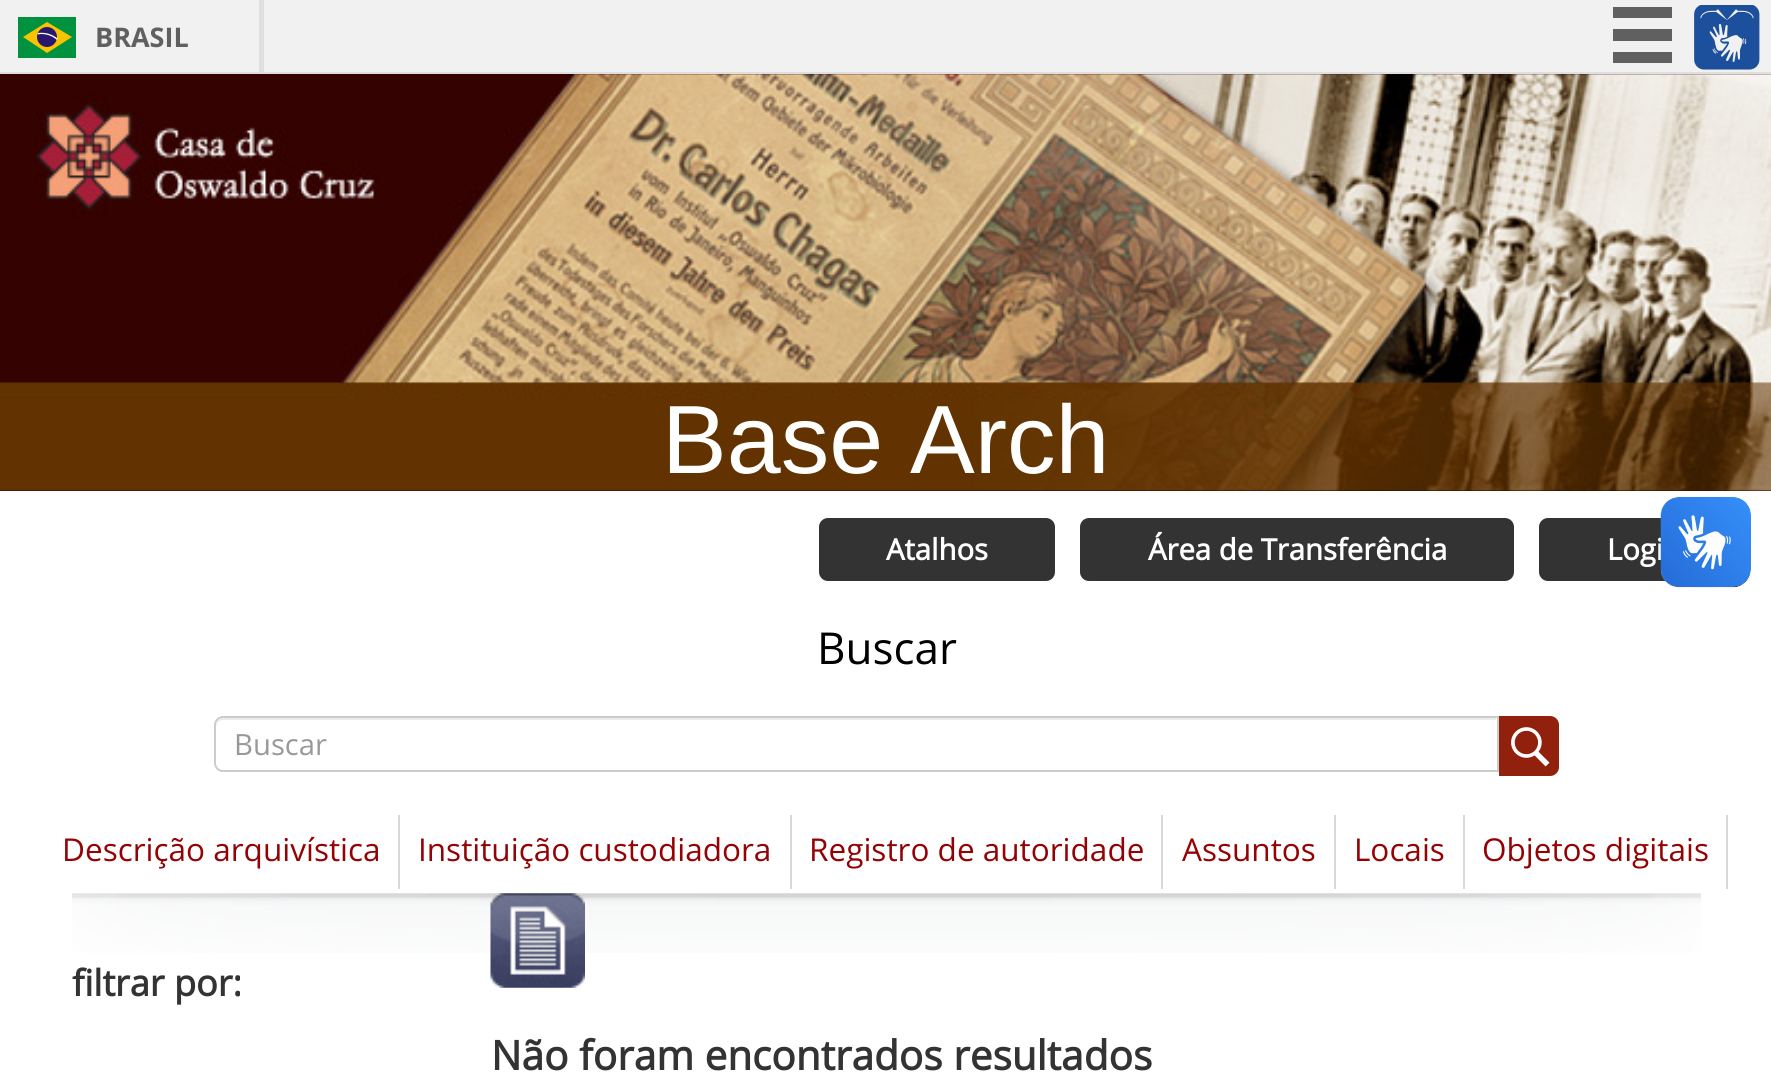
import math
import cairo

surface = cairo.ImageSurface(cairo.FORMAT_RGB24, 1771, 1082)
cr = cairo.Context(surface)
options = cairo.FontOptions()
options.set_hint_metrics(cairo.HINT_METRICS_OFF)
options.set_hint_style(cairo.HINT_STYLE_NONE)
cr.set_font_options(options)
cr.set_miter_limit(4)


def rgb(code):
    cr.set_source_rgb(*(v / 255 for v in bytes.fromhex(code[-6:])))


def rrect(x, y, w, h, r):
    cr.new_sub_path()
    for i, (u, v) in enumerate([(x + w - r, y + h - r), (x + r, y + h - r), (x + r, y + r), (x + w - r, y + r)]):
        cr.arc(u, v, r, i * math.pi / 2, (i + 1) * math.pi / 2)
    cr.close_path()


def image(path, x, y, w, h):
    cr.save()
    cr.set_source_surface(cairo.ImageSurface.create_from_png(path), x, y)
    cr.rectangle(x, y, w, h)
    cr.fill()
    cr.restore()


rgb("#ffffff")
cr.paint()
for x, y, w, h, color in [
    (0, 0, 1771, 72, "#f1f1f1"),
    (0, 72, 1771, 2, "#dfdfdf"),
    (259, 0, 5, 72, "#dfdfdf"),
    (18, 17, 58, 41, "#00923f"),
]:
    rgb(color)
    cr.rectangle(x, y, w, h)
    cr.fill()
rgb("#f8c300")
cr.new_path()
cr.move_to(47, 22)
cr.line_to(23, 37)
cr.line_to(47, 53)
cr.line_to(72, 37)
cr.close_path()
cr.fill()
rgb("#28166f")
cr.arc(47, 37, 10, 0, 2 * math.pi)
cr.fill()
rgb("#ffffff")
cr.new_path()
cr.move_to(41, 34)
cr.curve_to(47, 34, 52.5, 36, 57, 40)
cr.line_to(57.5, 38.5)
cr.curve_to(52, 34, 45, 32, 38, 33)
cr.line_to(37.5, 34.5)
cr.close_path()
cr.fill()
for x, y, w, h, color in [
    (1613, 7, 59, 11, "#606060"),
    (1613, 29, 59, 12, "#606060"),
    (1613, 52, 59, 11, "#606060"),
]:
    rgb(color)
    cr.rectangle(x, y, w, h)
    cr.fill()
image("img/1.png", 1694, 5, 66, 65)
rgb("#330200")
cr.rectangle(0, 74, 1771, 417)
cr.fill()
image("img/2.png", 0, 74, 1771, 417)
rgb("#333333")
rrect(819, 518, 236, 63, 9)
cr.fill()
rrect(1080, 518, 434, 63, 9)
cr.fill()
rrect(1539, 518, 209, 63, 9)
cr.fill()
rgb("#ececec")
cr.new_path()
cr.move_to(223, 720)
cr.line_to(1496, 720)
cr.line_to(1496, 718)
cr.line_to(223, 718)
cr.curve_to(219, 718, 216, 721, 216, 725)
cr.line_to(216, 727)
cr.curve_to(216, 723, 219, 720, 223, 720)
cr.close_path()
cr.fill()
cr.new_path()
cr.move_to(223, 717)
cr.line_to(1498, 717)
cr.line_to(1498, 771)
cr.line_to(223, 771)
cr.curve_to(218.5, 771, 215, 767.5, 215, 763)
cr.line_to(215, 725)
cr.curve_to(215, 720.5, 218.5, 717, 223, 717)
cr.close_path()
rgb("#cccccc")
cr.stroke()
rgb("#91200d")
cr.new_path()
cr.move_to(1499, 716)
cr.line_to(1550, 716)
cr.curve_to(1555, 716, 1559, 720, 1559, 725)
cr.line_to(1559, 767)
cr.curve_to(1559, 772, 1555, 776, 1550, 776)
cr.line_to(1499, 776)
cr.close_path()
cr.fill()
image("img/5.png", 1511, 727, 39, 40)
for x, y, w, h, color in [
    (398, 815, 2, 74, "#d9d9d9"),
    (790, 815, 2, 74, "#d9d9d9"),
    (1161, 815, 2, 74, "#d9d9d9"),
    (1334, 815, 2, 74, "#d9d9d9"),
    (1463, 815, 2, 74, "#d9d9d9"),
    (1726, 815, 2, 74, "#d9d9d9"),
]:
    rgb(color)
    cr.rectangle(x, y, w, h)
    cr.fill()
image("img/6.png", 72, 893, 1629, 60)
image("img/7.png", 490, 893, 95, 95)
cr.select_font_face("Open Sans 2", cairo.FONT_SLANT_NORMAL, cairo.FONT_WEIGHT_BOLD)
cr.set_font_size(27)
rgb("#606060")
cr.move_to(95, 47)
cr.show_text("BRASIL")
cr.select_font_face("Liberation Sans")
cr.set_font_size(97)
rgb("#ffffff")
cr.move_to(662, 473)
cr.show_text("Base Arch")
cr.select_font_face("Open Sans", cairo.FONT_SLANT_NORMAL, cairo.FONT_WEIGHT_BOLD)
cr.set_font_size(29.25)
for x, y, s in [
    (886, 560, "Atalhos"),
    (1148, 560, "Área de Transferência"),
    (1607, 560, "Logi"),
]:
    cr.move_to(x, y)
    cr.show_text(s)
image("img/3.png", 1660, 497, 91, 91)
image("img/4.png", 1661, 497, 90, 90)
cr.select_font_face("Open Sans")
cr.set_font_size(44)
rgb("#000000")
cr.move_to(817, 664)
cr.show_text("Buscar")
cr.set_font_size(29.25)
rgb("#999999")
cr.move_to(234, 755)
cr.show_text("Buscar")
cr.set_font_size(31.5)
rgb("#950204")
for x, y, s in [
    (62, 861, "Descrição arquivística"),
    (418, 861, "Instituição custodiadora"),
    (809, 861, "Registro de autoridade"),
    (1182, 861, "Assuntos"),
    (1354, 861, "Locais"),
    (1482, 861, "Objetos digitais"),
]:
    cr.move_to(x, y)
    cr.show_text(s)
cr.select_font_face("Open Sans", cairo.FONT_SLANT_NORMAL, cairo.FONT_WEIGHT_BOLD)
cr.set_font_size(36)
rgb("#333333")
cr.move_to(72, 996)
cr.show_text("filtrar por:")
cr.set_font_size(40.5)
cr.move_to(491, 1070)
cr.show_text("Não foram encontrados resultados")
surface.write_to_png("page.png")
